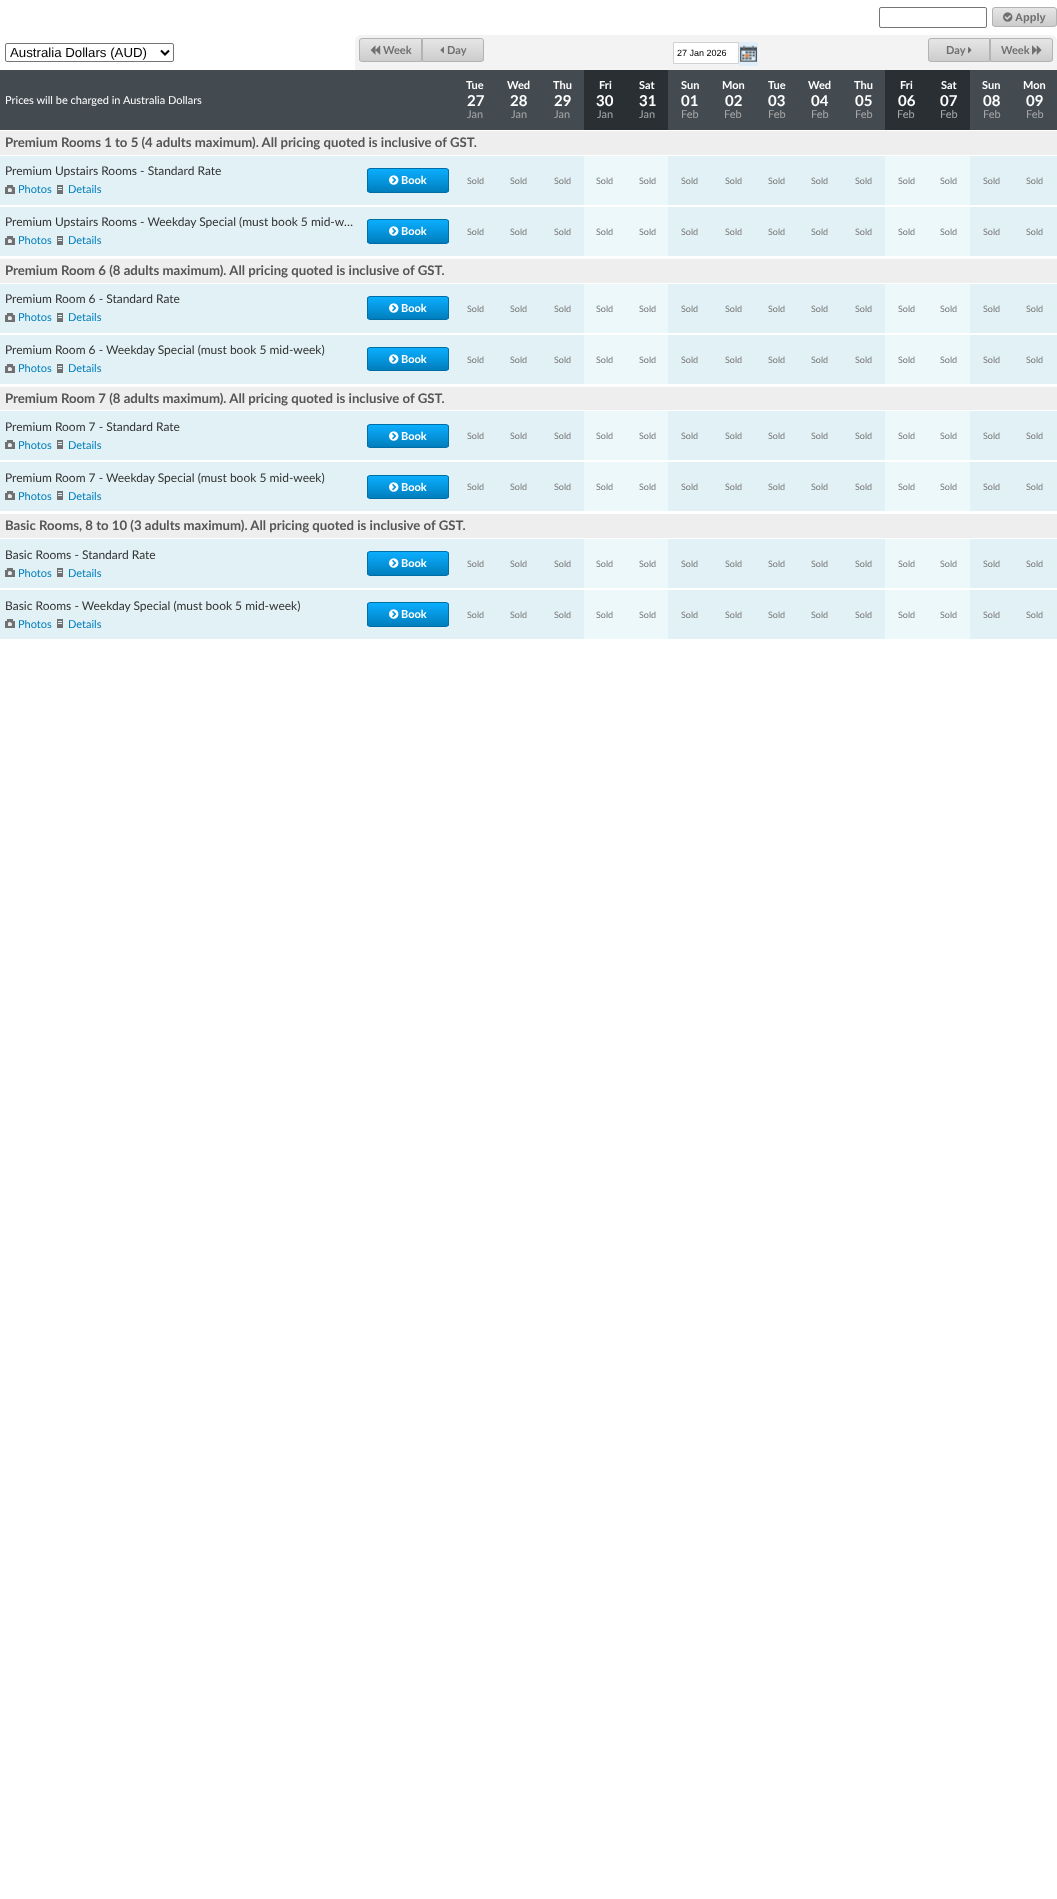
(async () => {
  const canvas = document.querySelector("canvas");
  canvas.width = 1057;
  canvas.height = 1899;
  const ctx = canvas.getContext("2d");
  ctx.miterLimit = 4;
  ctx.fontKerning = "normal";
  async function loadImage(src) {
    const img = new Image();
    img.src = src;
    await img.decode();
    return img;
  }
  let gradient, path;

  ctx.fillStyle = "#ffffff";
  ctx.fillRect(0, 0, 1057, 1899);
  ctx.beginPath();
  ctx.roundRect(879.5, 7.5, 107, 20, 1.5);
  ctx.strokeStyle = "#767676";
  ctx.stroke();
  ctx.save();
  ctx.beginPath();
  ctx.roundRect(992, 7, 65, 20, 3);
  ctx.clip();
  gradient = ctx.createLinearGradient(1025, 8, 1025, 26);
  gradient.addColorStop(0, "#e6e6e6");
  gradient.addColorStop(1, "#cccccc");
  ctx.fillStyle = gradient;
  ctx.fillRect(992, 8, 65, 18);
  ctx.restore();
  ctx.beginPath();
  ctx.roundRect(992.5, 7.5, 64, 19, 2.5);
  ctx.strokeStyle = "#b3b3b3";
  ctx.stroke();
  ctx.drawImage(await loadImage("img/1.png"), 1003, 12, 10, 10);
  ctx.beginPath();
  ctx.roundRect(5.5, 43.5, 168, 18, 1.5);
  ctx.strokeStyle = "#767676";
  ctx.stroke();
  path = new Path2D("M161 50.5L165 54.5L169 50.5");
  ctx.strokeStyle = "#000000";
  ctx.lineWidth = 2;
  ctx.stroke(path);
  ctx.fillStyle = "#f3f3f3";
  ctx.beginPath();
  ctx.roundRect(355, 35, 276, 35, [6, 0, 0, 0]);
  ctx.fill();
  ctx.save();
  ctx.beginPath();
  ctx.roundRect(359, 38, 63, 24, [3, 0, 0, 3]);
  ctx.clip();
  gradient = ctx.createLinearGradient(391, 39, 391, 61);
  gradient.addColorStop(0, "#e6e6e6");
  gradient.addColorStop(1, "#cccccc");
  ctx.fillStyle = gradient;
  ctx.fillRect(359, 39, 62, 22);
  ctx.restore();
  ctx.beginPath();
  ctx.roundRect(359.5, 38.5, 62, 23, [2.5, 0, 0, 2.5]);
  ctx.strokeStyle = "#b3b3b3";
  ctx.lineWidth = 1;
  ctx.stroke();
  ctx.drawImage(await loadImage("img/2.png"), 370, 45, 11, 10);
  ctx.save();
  ctx.beginPath();
  ctx.roundRect(422, 38, 62, 24, [0, 3, 3, 0]);
  ctx.clip();
  gradient = ctx.createLinearGradient(453, 39, 453, 61);
  gradient.addColorStop(0, "#e6e6e6");
  gradient.addColorStop(1, "#cccccc");
  ctx.fillStyle = gradient;
  ctx.fillRect(423, 39, 61, 22);
  ctx.restore();
  ctx.beginPath();
  ctx.roundRect(422.5, 38.5, 61, 23, [0, 2.5, 2.5, 0]);
  ctx.stroke();
  ctx.drawImage(await loadImage("img/3.png"), 440, 47, 4, 7);
  ctx.fillRect(631, 35, 170, 35);
  ctx.fillStyle = "#ffffff";
  ctx.beginPath();
  ctx.rect(673.5, 42.5, 65, 21);
  ctx.fill();
  ctx.strokeStyle = "#d1d1d1";
  ctx.stroke();
  ctx.drawImage(await loadImage("img/4.png"), 739, 42, 19, 24);
  ctx.fillStyle = "#f3f3f3";
  ctx.beginPath();
  ctx.roundRect(801, 35, 256, 35, [0, 6, 0, 0]);
  ctx.fill();
  ctx.save();
  ctx.beginPath();
  ctx.roundRect(928, 38, 62, 24, [3, 0, 0, 3]);
  ctx.clip();
  gradient = ctx.createLinearGradient(959, 39, 959, 61);
  gradient.addColorStop(0, "#e6e6e6");
  gradient.addColorStop(1, "#cccccc");
  ctx.fillStyle = gradient;
  ctx.fillRect(928, 39, 61, 22);
  ctx.restore();
  ctx.beginPath();
  ctx.roundRect(928.5, 38.5, 61, 23, [2.5, 0, 0, 2.5]);
  ctx.strokeStyle = "#b3b3b3";
  ctx.stroke();
  ctx.drawImage(await loadImage("img/5.png"), 968, 47, 4, 7);
  ctx.save();
  ctx.beginPath();
  ctx.roundRect(990, 38, 63, 24, [0, 3, 3, 0]);
  ctx.clip();
  gradient = ctx.createLinearGradient(1022, 39, 1022, 61);
  gradient.addColorStop(0, "#e6e6e6");
  gradient.addColorStop(1, "#cccccc");
  ctx.fillStyle = gradient;
  ctx.fillRect(991, 39, 62, 22);
  ctx.restore();
  ctx.beginPath();
  ctx.roundRect(990.5, 38.5, 62, 23, [0, 2.5, 2.5, 0]);
  ctx.stroke();
  ctx.drawImage(await loadImage("img/6.png"), 1032, 45, 10, 10);
  for (const [x, y, w, h, color] of [
    [0, 70, 584, 60, "#434a50"],
    [584, 70, 84, 60, "#2a2f34"],
    [668, 70, 217, 60, "#434a50"],
    [885, 70, 85, 60, "#2a2f34"],
    [970, 70, 87, 60, "#434a50"],
    [0, 131, 1057, 24, "#eeeeee"],
    [0, 156, 584, 49, "#e2f1f6"],
  ]) {
    ctx.fillStyle = color;
    ctx.fillRect(x, y, w, h);
  }
  ctx.drawImage(await loadImage("img/7.png"), 5, 185, 10, 9);
  ctx.drawImage(await loadImage("img/8.png"), 57, 185, 6, 9);
  ctx.save();
  ctx.beginPath();
  ctx.roundRect(367, 168, 82, 25, 3);
  ctx.clip();
  gradient = ctx.createLinearGradient(408, 192, 408, 169);
  gradient.addColorStop(0, "#007ebd");
  gradient.addColorStop(1, "#0baeff");
  ctx.fillStyle = gradient;
  ctx.fillRect(367, 169, 82, 23);
  ctx.restore();
  ctx.beginPath();
  ctx.roundRect(367.5, 168.5, 81, 24, 2.5);
  ctx.strokeStyle = "#006da4";
  ctx.stroke();
  ctx.drawImage(await loadImage("img/9.png"), 389, 175, 10, 10);
  for (const [x, y, w, h, color] of [
    [584, 156, 84, 49, "#ecf8fa"],
    [668, 156, 217, 49, "#e2f1f6"],
    [885, 156, 85, 49, "#ecf8fa"],
    [970, 156, 87, 49, "#e2f1f6"],
    [0, 207, 584, 49, "#e2f1f6"],
  ]) {
    ctx.fillStyle = color;
    ctx.fillRect(x, y, w, h);
  }
  ctx.drawImage(await loadImage("img/7.png"), 5, 236, 10, 9);
  ctx.drawImage(await loadImage("img/8.png"), 57, 236, 6, 9);
  ctx.save();
  ctx.beginPath();
  ctx.roundRect(367, 219, 82, 25, 3);
  ctx.clip();
  gradient = ctx.createLinearGradient(408, 243, 408, 220);
  gradient.addColorStop(0, "#007ebd");
  gradient.addColorStop(1, "#0baeff");
  ctx.fillStyle = gradient;
  ctx.fillRect(367, 220, 82, 23);
  ctx.restore();
  ctx.beginPath();
  ctx.roundRect(367.5, 219.5, 81, 24, 2.5);
  ctx.stroke();
  ctx.drawImage(await loadImage("img/9.png"), 389, 226, 10, 10);
  for (const [x, y, w, h, color] of [
    [584, 207, 84, 49, "#ecf8fa"],
    [668, 207, 217, 49, "#e2f1f6"],
    [885, 207, 85, 49, "#ecf8fa"],
    [970, 207, 87, 49, "#e2f1f6"],
    [0, 259, 1057, 24, "#eeeeee"],
    [0, 284, 584, 49, "#e2f1f6"],
  ]) {
    ctx.fillStyle = color;
    ctx.fillRect(x, y, w, h);
  }
  ctx.drawImage(await loadImage("img/7.png"), 5, 313, 10, 9);
  ctx.drawImage(await loadImage("img/8.png"), 57, 313, 6, 9);
  ctx.save();
  ctx.beginPath();
  ctx.roundRect(367, 296, 82, 24, 3);
  ctx.clip();
  gradient = ctx.createLinearGradient(408, 319, 408, 297);
  gradient.addColorStop(0, "#007ebd");
  gradient.addColorStop(1, "#0baeff");
  ctx.fillStyle = gradient;
  ctx.fillRect(367, 297, 82, 22);
  ctx.restore();
  ctx.beginPath();
  ctx.roundRect(367.5, 296.5, 81, 23, 2.5);
  ctx.stroke();
  ctx.drawImage(await loadImage("img/10.png"), 389, 303, 10, 10);
  for (const [x, y, w, h, color] of [
    [584, 284, 84, 49, "#ecf8fa"],
    [668, 284, 217, 49, "#e2f1f6"],
    [885, 284, 85, 49, "#ecf8fa"],
    [970, 284, 87, 49, "#e2f1f6"],
    [0, 335, 584, 49, "#e2f1f6"],
  ]) {
    ctx.fillStyle = color;
    ctx.fillRect(x, y, w, h);
  }
  ctx.drawImage(await loadImage("img/7.png"), 5, 364, 10, 9);
  ctx.drawImage(await loadImage("img/8.png"), 57, 364, 6, 9);
  ctx.save();
  ctx.beginPath();
  ctx.roundRect(367, 347, 82, 24, 3);
  ctx.clip();
  gradient = ctx.createLinearGradient(408, 370, 408, 348);
  gradient.addColorStop(0, "#007ebd");
  gradient.addColorStop(1, "#0baeff");
  ctx.fillStyle = gradient;
  ctx.fillRect(367, 348, 82, 22);
  ctx.restore();
  ctx.beginPath();
  ctx.roundRect(367.5, 347.5, 81, 23, 2.5);
  ctx.stroke();
  ctx.drawImage(await loadImage("img/10.png"), 389, 354, 10, 10);
  for (const [x, y, w, h, color] of [
    [584, 335, 84, 49, "#ecf8fa"],
    [668, 335, 217, 49, "#e2f1f6"],
    [885, 335, 85, 49, "#ecf8fa"],
    [970, 335, 87, 49, "#e2f1f6"],
    [0, 387, 1057, 23, "#eeeeee"],
    [0, 411, 584, 49, "#e2f1f6"],
  ]) {
    ctx.fillStyle = color;
    ctx.fillRect(x, y, w, h);
  }
  ctx.drawImage(await loadImage("img/7.png"), 5, 440, 10, 9);
  ctx.drawImage(await loadImage("img/8.png"), 57, 440, 6, 9);
  ctx.save();
  ctx.beginPath();
  ctx.roundRect(367, 424, 82, 24, 3);
  ctx.clip();
  gradient = ctx.createLinearGradient(408, 447, 408, 425);
  gradient.addColorStop(0, "#007ebd");
  gradient.addColorStop(1, "#0baeff");
  ctx.fillStyle = gradient;
  ctx.fillRect(367, 425, 82, 22);
  ctx.restore();
  ctx.beginPath();
  ctx.roundRect(367.5, 424.5, 81, 23, 2.5);
  ctx.stroke();
  ctx.drawImage(await loadImage("img/10.png"), 389, 431, 10, 10);
  for (const [x, y, w, h, color] of [
    [584, 411, 84, 49, "#ecf8fa"],
    [668, 411, 217, 49, "#e2f1f6"],
    [885, 411, 85, 49, "#ecf8fa"],
    [970, 411, 87, 49, "#e2f1f6"],
    [0, 462, 584, 49, "#e2f1f6"],
  ]) {
    ctx.fillStyle = color;
    ctx.fillRect(x, y, w, h);
  }
  ctx.drawImage(await loadImage("img/7.png"), 5, 491, 10, 9);
  ctx.drawImage(await loadImage("img/8.png"), 57, 491, 6, 9);
  ctx.save();
  ctx.beginPath();
  ctx.roundRect(367, 475, 82, 24, 3);
  ctx.clip();
  gradient = ctx.createLinearGradient(408, 498, 408, 476);
  gradient.addColorStop(0, "#007ebd");
  gradient.addColorStop(1, "#0baeff");
  ctx.fillStyle = gradient;
  ctx.fillRect(367, 476, 82, 22);
  ctx.restore();
  ctx.beginPath();
  ctx.roundRect(367.5, 475.5, 81, 23, 2.5);
  ctx.stroke();
  ctx.drawImage(await loadImage("img/10.png"), 389, 482, 10, 10);
  for (const [x, y, w, h, color] of [
    [584, 462, 84, 49, "#ecf8fa"],
    [668, 462, 217, 49, "#e2f1f6"],
    [885, 462, 85, 49, "#ecf8fa"],
    [970, 462, 87, 49, "#e2f1f6"],
    [0, 514, 1057, 24, "#eeeeee"],
    [0, 539, 584, 49, "#e2f1f6"],
  ]) {
    ctx.fillStyle = color;
    ctx.fillRect(x, y, w, h);
  }
  ctx.drawImage(await loadImage("img/7.png"), 5, 568, 10, 9);
  ctx.drawImage(await loadImage("img/8.png"), 57, 568, 6, 9);
  ctx.save();
  ctx.beginPath();
  ctx.roundRect(367, 551, 82, 25, 3);
  ctx.clip();
  gradient = ctx.createLinearGradient(408, 575, 408, 552);
  gradient.addColorStop(0, "#007ebd");
  gradient.addColorStop(1, "#0baeff");
  ctx.fillStyle = gradient;
  ctx.fillRect(367, 552, 82, 23);
  ctx.restore();
  ctx.beginPath();
  ctx.roundRect(367.5, 551.5, 81, 24, 2.5);
  ctx.stroke();
  ctx.drawImage(await loadImage("img/9.png"), 389, 558, 10, 10);
  for (const [x, y, w, h, color] of [
    [584, 539, 84, 49, "#ecf8fa"],
    [668, 539, 217, 49, "#e2f1f6"],
    [885, 539, 85, 49, "#ecf8fa"],
    [970, 539, 87, 49, "#e2f1f6"],
    [0, 590, 584, 49, "#e2f1f6"],
  ]) {
    ctx.fillStyle = color;
    ctx.fillRect(x, y, w, h);
  }
  ctx.drawImage(await loadImage("img/7.png"), 5, 619, 10, 9);
  ctx.drawImage(await loadImage("img/8.png"), 57, 619, 6, 9);
  ctx.save();
  ctx.beginPath();
  ctx.roundRect(367, 602, 82, 25, 3);
  ctx.clip();
  gradient = ctx.createLinearGradient(408, 626, 408, 603);
  gradient.addColorStop(0, "#007ebd");
  gradient.addColorStop(1, "#0baeff");
  ctx.fillStyle = gradient;
  ctx.fillRect(367, 603, 82, 23);
  ctx.restore();
  ctx.beginPath();
  ctx.roundRect(367.5, 602.5, 81, 24, 2.5);
  ctx.stroke();
  ctx.drawImage(await loadImage("img/9.png"), 389, 609, 10, 10);
  for (const [x, y, w, h, color] of [
    [584, 590, 84, 49, "#ecf8fa"],
    [668, 590, 217, 49, "#e2f1f6"],
    [885, 590, 85, 49, "#ecf8fa"],
    [970, 590, 87, 49, "#e2f1f6"],
  ]) {
    ctx.fillStyle = color;
    ctx.fillRect(x, y, w, h);
  }
  ctx.font = "bold 11px Liberation Sans";
  ctx.fillStyle = "#707070";
  ctx.fillText("Apply", 1015, 21);
  ctx.font = "13.25px Liberation Sans";
  ctx.fillStyle = "#000000";
  ctx.fillText("Australia Dollars (AUD)", 10, 57);
  ctx.font = "bold 11px Lato";
  ctx.fillStyle = "#707070";
  ctx.fillText("Week", 383, 54);
  ctx.fillText("Day", 447, 54);
  ctx.font = "9px Liberation Sans";
  ctx.fillStyle = "#000000";
  ctx.fillText("27 Jan 2026", 677, 56);
  ctx.font = "bold 11px Lato";
  ctx.fillStyle = "#707070";
  ctx.fillText("Day", 946, 54);
  ctx.fillText("Week", 1001, 54);
  ctx.font = "11px Lato";
  ctx.fillStyle = "#ffffff";
  ctx.fillText("Prices will be charged in Australia Dollars", 5, 104);
  ctx.font = "bold 11px Lato";
  ctx.fillText("Tue", 466, 89);
  ctx.font = "bold 15px Lato";
  ctx.fillText("27", 467, 106);
  ctx.font = "11px Lato";
  ctx.fillStyle = "#a8a8a8";
  ctx.fillText("Jan", 467, 118);
  ctx.font = "bold 11px Lato";
  ctx.fillStyle = "#ffffff";
  ctx.fillText("Wed", 507, 89);
  ctx.font = "bold 15px Lato";
  ctx.fillText("28", 510, 106);
  ctx.font = "11px Lato";
  ctx.fillStyle = "#a8a8a8";
  ctx.fillText("Jan", 511, 118);
  ctx.font = "bold 11px Lato";
  ctx.fillStyle = "#ffffff";
  ctx.fillText("Thu", 553, 89);
  ctx.font = "bold 15px Lato";
  ctx.fillText("29", 554, 106);
  ctx.font = "11px Lato";
  ctx.fillStyle = "#a8a8a8";
  ctx.fillText("Jan", 554, 118);
  ctx.font = "bold 11px Lato";
  ctx.fillStyle = "#ffffff";
  ctx.fillText("Fri", 599, 89);
  ctx.font = "bold 15px Lato";
  ctx.fillText("30", 596, 106);
  ctx.font = "11px Lato";
  ctx.fillStyle = "#a8a8a8";
  ctx.fillText("Jan", 597, 118);
  ctx.font = "bold 11px Lato";
  ctx.fillStyle = "#ffffff";
  ctx.fillText("Sat", 639, 89);
  ctx.font = "bold 15px Lato";
  ctx.fillText("31", 639, 106);
  ctx.font = "11px Lato";
  ctx.fillStyle = "#a8a8a8";
  ctx.fillText("Jan", 639, 118);
  ctx.font = "bold 11px Lato";
  ctx.fillStyle = "#ffffff";
  ctx.fillText("Sun", 681, 89);
  ctx.font = "bold 15px Lato";
  ctx.fillText("01", 681, 106);
  ctx.font = "11px Lato";
  ctx.fillStyle = "#a8a8a8";
  ctx.fillText("Feb", 681, 118);
  ctx.font = "bold 11px Lato";
  ctx.fillStyle = "#ffffff";
  ctx.fillText("Mon", 722, 89);
  ctx.font = "bold 15px Lato";
  ctx.fillText("02", 725, 106);
  ctx.font = "11px Lato";
  ctx.fillStyle = "#a8a8a8";
  ctx.fillText("Feb", 724, 118);
  ctx.font = "bold 11px Lato";
  ctx.fillStyle = "#ffffff";
  ctx.fillText("Tue", 768, 89);
  ctx.font = "bold 15px Lato";
  ctx.fillText("03", 768, 106);
  ctx.font = "11px Lato";
  ctx.fillStyle = "#a8a8a8";
  ctx.fillText("Feb", 768, 118);
  ctx.font = "bold 11px Lato";
  ctx.fillStyle = "#ffffff";
  ctx.fillText("Wed", 808, 89);
  ctx.font = "bold 15px Lato";
  ctx.fillText("04", 811, 106);
  ctx.font = "11px Lato";
  ctx.fillStyle = "#a8a8a8";
  ctx.fillText("Feb", 811, 118);
  ctx.font = "bold 11px Lato";
  ctx.fillStyle = "#ffffff";
  ctx.fillText("Thu", 854, 89);
  ctx.font = "bold 15px Lato";
  ctx.fillText("05", 855, 106);
  ctx.font = "11px Lato";
  ctx.fillStyle = "#a8a8a8";
  ctx.fillText("Feb", 855, 118);
  ctx.font = "bold 11px Lato";
  ctx.fillStyle = "#ffffff";
  ctx.fillText("Fri", 900, 89);
  ctx.font = "bold 15px Lato";
  ctx.fillText("06", 898, 106);
  ctx.font = "11px Lato";
  ctx.fillStyle = "#a8a8a8";
  ctx.fillText("Feb", 897, 118);
  ctx.font = "bold 11px Lato";
  ctx.fillStyle = "#ffffff";
  ctx.fillText("Sat", 941, 89);
  ctx.font = "bold 15px Lato";
  ctx.fillText("07", 940, 106);
  ctx.font = "11px Lato";
  ctx.fillStyle = "#a8a8a8";
  ctx.fillText("Feb", 940, 118);
  ctx.font = "bold 11px Lato";
  ctx.fillStyle = "#ffffff";
  ctx.fillText("Sun", 982, 89);
  ctx.font = "bold 15px Lato";
  ctx.fillText("08", 983, 106);
  ctx.font = "11px Lato";
  ctx.fillStyle = "#a8a8a8";
  ctx.fillText("Feb", 983, 118);
  ctx.font = "bold 11px Lato";
  ctx.fillStyle = "#ffffff";
  ctx.fillText("Mon", 1023, 89);
  ctx.font = "bold 15px Lato";
  ctx.fillText("09", 1026, 106);
  ctx.font = "11px Lato";
  ctx.fillStyle = "#a8a8a8";
  ctx.fillText("Feb", 1026, 118);
  ctx.font = "bold 13.2px Lato";
  ctx.fillStyle = "#555555";
  ctx.fillText("Premium Rooms 1 to 5 (4 adults maximum). All pricing quoted is inclusive of GST.", 5, 147);
  ctx.font = "12px Lato";
  ctx.fillStyle = "#333333";
  ctx.fillText("Premium Upstairs Rooms - Standard Rate", 5, 175);
  ctx.font = "11px Lato";
  ctx.fillStyle = "#007ebd";
  ctx.fillText("Photos", 18, 193);
  ctx.fillText("Details", 68, 193);
  ctx.font = "bold 11px Lato";
  ctx.fillStyle = "#ffffff";
  ctx.fillText("Book", 401, 184);
  ctx.font = "9px Lato";
  ctx.fillStyle = "#787878";
  for (const [text, x, y] of [
    ["Sold", 467, 184],
    ["Sold", 510, 184],
    ["Sold", 554, 184],
    ["Sold", 596, 184],
    ["Sold", 639, 184],
    ["Sold", 681, 184],
    ["Sold", 725, 184],
    ["Sold", 768, 184],
    ["Sold", 811, 184],
    ["Sold", 855, 184],
    ["Sold", 898, 184],
    ["Sold", 940, 184],
    ["Sold", 983, 184],
    ["Sold", 1026, 184],
  ]) {
    ctx.fillText(text, x, y);
  }
  ctx.font = "12px Lato";
  ctx.fillStyle = "#333333";
  ctx.fillText("Premium Upstairs Rooms - Weekday Special (must book 5 mid-w…", 5, 226);
  ctx.font = "11px Lato";
  ctx.fillStyle = "#007ebd";
  ctx.fillText("Photos", 18, 244);
  ctx.fillText("Details", 68, 244);
  ctx.font = "bold 11px Lato";
  ctx.fillStyle = "#ffffff";
  ctx.fillText("Book", 401, 235);
  ctx.font = "9px Lato";
  ctx.fillStyle = "#787878";
  for (const [text, x, y] of [
    ["Sold", 467, 235],
    ["Sold", 510, 235],
    ["Sold", 554, 235],
    ["Sold", 596, 235],
    ["Sold", 639, 235],
    ["Sold", 681, 235],
    ["Sold", 725, 235],
    ["Sold", 768, 235],
    ["Sold", 811, 235],
    ["Sold", 855, 235],
    ["Sold", 898, 235],
    ["Sold", 940, 235],
    ["Sold", 983, 235],
    ["Sold", 1026, 235],
  ]) {
    ctx.fillText(text, x, y);
  }
  ctx.font = "bold 13.2px Lato";
  ctx.fillStyle = "#555555";
  ctx.fillText("Premium Room 6 (8 adults maximum). All pricing quoted is inclusive of GST.", 5, 275);
  ctx.font = "12px Lato";
  ctx.fillStyle = "#333333";
  ctx.fillText("Premium Room 6 - Standard Rate", 5, 303);
  ctx.font = "11px Lato";
  ctx.fillStyle = "#007ebd";
  ctx.fillText("Photos", 18, 321);
  ctx.fillText("Details", 68, 321);
  ctx.font = "bold 11px Lato";
  ctx.fillStyle = "#ffffff";
  ctx.fillText("Book", 401, 312);
  ctx.font = "9px Lato";
  ctx.fillStyle = "#787878";
  for (const [text, x, y] of [
    ["Sold", 467, 312],
    ["Sold", 510, 312],
    ["Sold", 554, 312],
    ["Sold", 596, 312],
    ["Sold", 639, 312],
    ["Sold", 681, 312],
    ["Sold", 725, 312],
    ["Sold", 768, 312],
    ["Sold", 811, 312],
    ["Sold", 855, 312],
    ["Sold", 898, 312],
    ["Sold", 940, 312],
    ["Sold", 983, 312],
    ["Sold", 1026, 312],
  ]) {
    ctx.fillText(text, x, y);
  }
  ctx.font = "12px Lato";
  ctx.fillStyle = "#333333";
  ctx.fillText("Premium Room 6 - Weekday Special (must book 5 mid-week)", 5, 354);
  ctx.font = "11px Lato";
  ctx.fillStyle = "#007ebd";
  ctx.fillText("Photos", 18, 372);
  ctx.fillText("Details", 68, 372);
  ctx.font = "bold 11px Lato";
  ctx.fillStyle = "#ffffff";
  ctx.fillText("Book", 401, 363);
  ctx.font = "9px Lato";
  ctx.fillStyle = "#787878";
  for (const [text, x, y] of [
    ["Sold", 467, 363],
    ["Sold", 510, 363],
    ["Sold", 554, 363],
    ["Sold", 596, 363],
    ["Sold", 639, 363],
    ["Sold", 681, 363],
    ["Sold", 725, 363],
    ["Sold", 768, 363],
    ["Sold", 811, 363],
    ["Sold", 855, 363],
    ["Sold", 898, 363],
    ["Sold", 940, 363],
    ["Sold", 983, 363],
    ["Sold", 1026, 363],
  ]) {
    ctx.fillText(text, x, y);
  }
  ctx.font = "bold 13.2px Lato";
  ctx.fillStyle = "#555555";
  ctx.fillText("Premium Room 7 (8 adults maximum). All pricing quoted is inclusive of GST.", 5, 403);
  ctx.font = "12px Lato";
  ctx.fillStyle = "#333333";
  ctx.fillText("Premium Room 7 - Standard Rate", 5, 431);
  ctx.font = "11px Lato";
  ctx.fillStyle = "#007ebd";
  ctx.fillText("Photos", 18, 449);
  ctx.fillText("Details", 68, 449);
  ctx.font = "bold 11px Lato";
  ctx.fillStyle = "#ffffff";
  ctx.fillText("Book", 401, 440);
  ctx.font = "9px Lato";
  ctx.fillStyle = "#787878";
  for (const [text, x, y] of [
    ["Sold", 467, 439],
    ["Sold", 510, 439],
    ["Sold", 554, 439],
    ["Sold", 596, 439],
    ["Sold", 639, 439],
    ["Sold", 681, 439],
    ["Sold", 725, 439],
    ["Sold", 768, 439],
    ["Sold", 811, 439],
    ["Sold", 855, 439],
    ["Sold", 898, 439],
    ["Sold", 940, 439],
    ["Sold", 983, 439],
    ["Sold", 1026, 439],
  ]) {
    ctx.fillText(text, x, y);
  }
  ctx.font = "12px Lato";
  ctx.fillStyle = "#333333";
  ctx.fillText("Premium Room 7 - Weekday Special (must book 5 mid-week)", 5, 482);
  ctx.font = "11px Lato";
  ctx.fillStyle = "#007ebd";
  ctx.fillText("Photos", 18, 500);
  ctx.fillText("Details", 68, 500);
  ctx.font = "bold 11px Lato";
  ctx.fillStyle = "#ffffff";
  ctx.fillText("Book", 401, 491);
  ctx.font = "9px Lato";
  ctx.fillStyle = "#787878";
  for (const [text, x, y] of [
    ["Sold", 467, 490],
    ["Sold", 510, 490],
    ["Sold", 554, 490],
    ["Sold", 596, 490],
    ["Sold", 639, 490],
    ["Sold", 681, 490],
    ["Sold", 725, 490],
    ["Sold", 768, 490],
    ["Sold", 811, 490],
    ["Sold", 855, 490],
    ["Sold", 898, 490],
    ["Sold", 940, 490],
    ["Sold", 983, 490],
    ["Sold", 1026, 490],
  ]) {
    ctx.fillText(text, x, y);
  }
  ctx.font = "bold 13.2px Lato";
  ctx.fillStyle = "#555555";
  ctx.fillText("Basic Rooms, 8 to 10 (3 adults maximum). All pricing quoted is inclusive of GST.", 5, 530);
  ctx.font = "12px Lato";
  ctx.fillStyle = "#333333";
  ctx.fillText("Basic Rooms - Standard Rate", 5, 559);
  ctx.font = "11px Lato";
  ctx.fillStyle = "#007ebd";
  ctx.fillText("Photos", 18, 577);
  ctx.fillText("Details", 68, 577);
  ctx.font = "bold 11px Lato";
  ctx.fillStyle = "#ffffff";
  ctx.fillText("Book", 401, 567);
  ctx.font = "9px Lato";
  ctx.fillStyle = "#787878";
  for (const [text, x, y] of [
    ["Sold", 467, 567],
    ["Sold", 510, 567],
    ["Sold", 554, 567],
    ["Sold", 596, 567],
    ["Sold", 639, 567],
    ["Sold", 681, 567],
    ["Sold", 725, 567],
    ["Sold", 768, 567],
    ["Sold", 811, 567],
    ["Sold", 855, 567],
    ["Sold", 898, 567],
    ["Sold", 940, 567],
    ["Sold", 983, 567],
    ["Sold", 1026, 567],
  ]) {
    ctx.fillText(text, x, y);
  }
  ctx.font = "12px Lato";
  ctx.fillStyle = "#333333";
  ctx.fillText("Basic Rooms - Weekday Special (must book 5 mid-week)", 5, 610);
  ctx.font = "11px Lato";
  ctx.fillStyle = "#007ebd";
  ctx.fillText("Photos", 18, 628);
  ctx.fillText("Details", 68, 628);
  ctx.font = "bold 11px Lato";
  ctx.fillStyle = "#ffffff";
  ctx.fillText("Book", 401, 618);
  ctx.font = "9px Lato";
  ctx.fillStyle = "#787878";
  for (const [text, x, y] of [
    ["Sold", 467, 618],
    ["Sold", 510, 618],
    ["Sold", 554, 618],
    ["Sold", 596, 618],
    ["Sold", 639, 618],
    ["Sold", 681, 618],
    ["Sold", 725, 618],
    ["Sold", 768, 618],
    ["Sold", 811, 618],
    ["Sold", 855, 618],
    ["Sold", 898, 618],
    ["Sold", 940, 618],
    ["Sold", 983, 618],
    ["Sold", 1026, 618],
  ]) {
    ctx.fillText(text, x, y);
  }
})();
